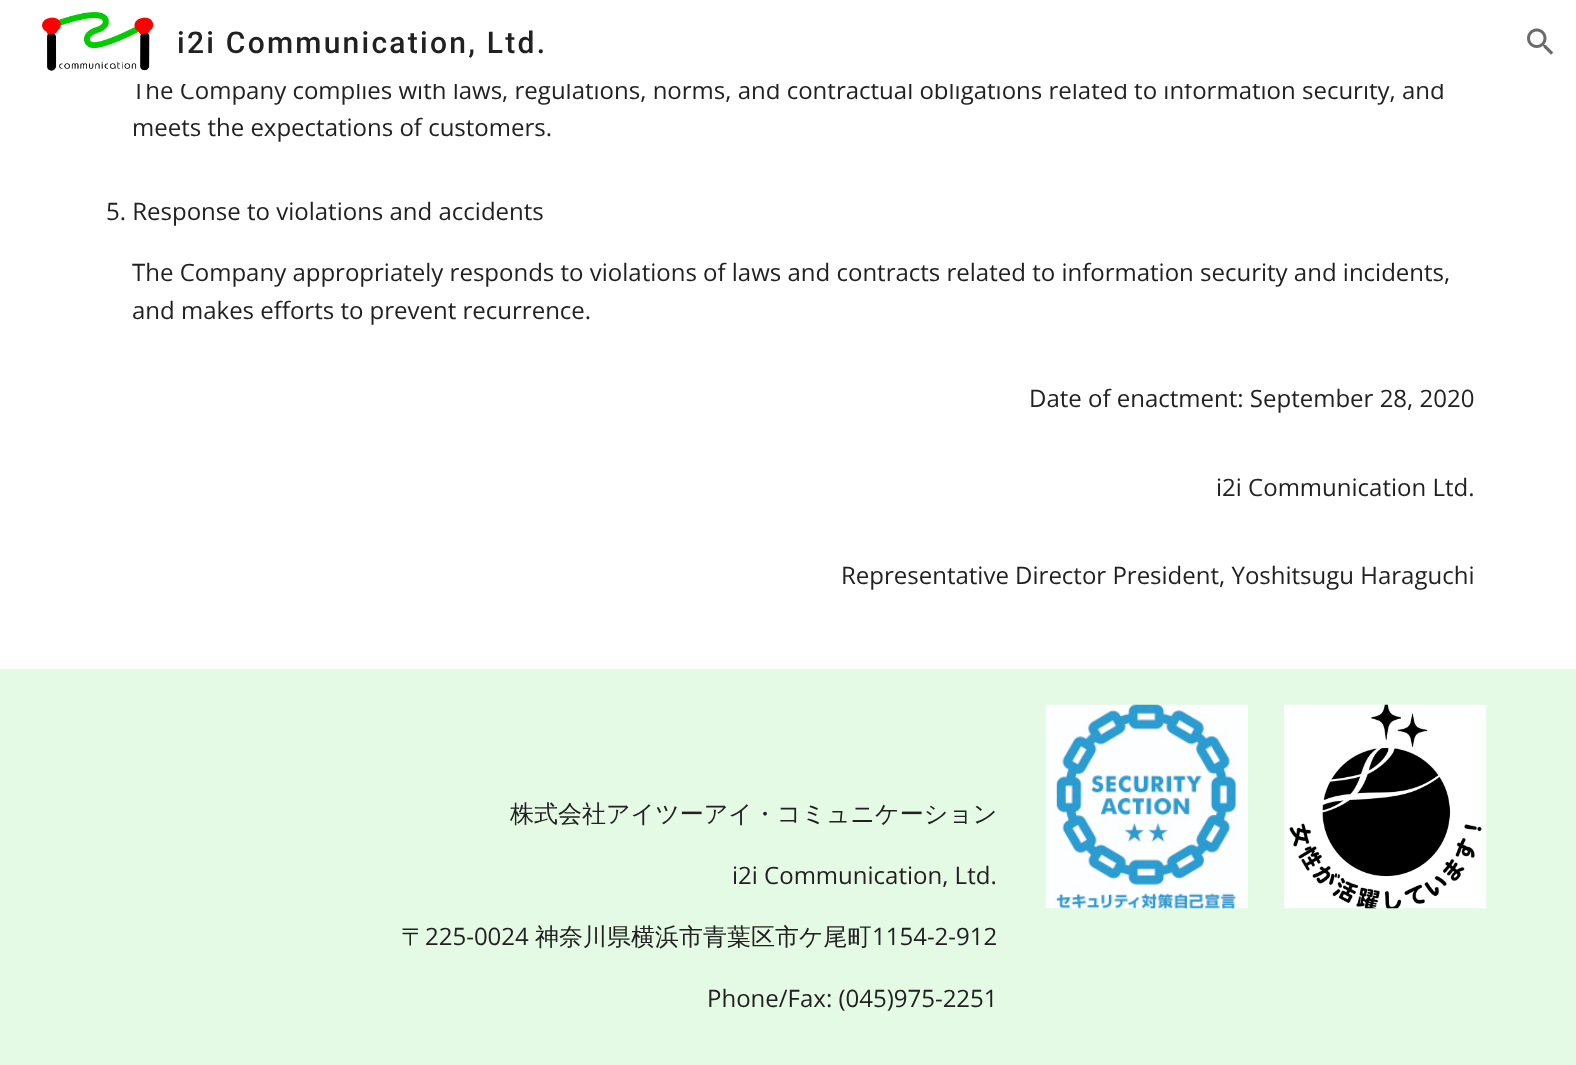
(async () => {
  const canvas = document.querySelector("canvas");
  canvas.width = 1576;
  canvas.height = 1065;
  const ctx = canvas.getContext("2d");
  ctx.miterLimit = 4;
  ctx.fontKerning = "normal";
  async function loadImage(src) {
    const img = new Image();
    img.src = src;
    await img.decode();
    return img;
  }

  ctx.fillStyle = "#ffffff";
  ctx.fillRect(0, 0, 1576, 1065);
  ctx.drawImage(await loadImage("img/1.png"), 42, 12, 111, 59);
  ctx.drawImage(await loadImage("img/2.png"), 1527, 28, 27, 27);
  ctx.fillStyle = "#e5fae5";
  ctx.fillRect(0, 669, 1576, 396);
  ctx.drawImage(await loadImage("img/3.png"), 1045, 704, 203, 205);
  ctx.drawImage(await loadImage("img/4.png"), 1284, 704, 203, 205);
  ctx.letterSpacing = "2.25px";
  ctx.font = "500 30px Roboto";
  ctx.fillStyle = "#212121";
  ctx.fillText("i2i Communication, Ltd.", 177, 53);
  ctx.letterSpacing = "0px";
  ctx.font = "24px Open Sans";
  ctx.fillText("The Company complies with laws, regulations, norms, and contractual obligations related to information security, and", 132, 99);
  ctx.fillStyle = "#ffffff";
  ctx.fillRect(132, 80, 1311, 4);
  ctx.fillStyle = "#212121";
  for (const [text, x, y] of [
    ["meets the expectations of customers.", 132, 136],
    ["5. Response to violations and accidents", 106, 220],
    ["The Company appropriately responds to violations of laws and contracts related to information security and incidents,", 132, 281],
    ["and makes efforts to prevent recurrence.", 132, 319],
    ["Date of enactment: September 28, 2020", 1029, 407],
    ["i2i Communication Ltd.", 1216, 496],
    ["Representative Director President, Yoshitsugu Haraguchi", 841, 584],
  ]) {
    ctx.fillText(text, x, y);
  }
  ctx.font = "500 24px WenQuanYi Zen Hei";
  ctx.fillText("株式会社アイツーアイ・コミュニケーション", 510, 822);
  ctx.font = "24px Open Sans";
  ctx.fillText("i2i Communication, Ltd.", 732, 884);
  ctx.font = "500 24px WenQuanYi Zen Hei";
  ctx.fillText("〒", 401, 945);
  ctx.font = "24px Open Sans";
  ctx.fillText("225-0024", 425, 945);
  ctx.font = "500 24px WenQuanYi Zen Hei";
  ctx.fillText("神奈川県横浜市青葉区市ケ尾町", 535, 945);
  ctx.font = "24px Open Sans";
  ctx.fillText("1154-2-912", 872, 945);
  ctx.fillText("Phone/Fax: (045)975-2251", 707, 1007);
})();
